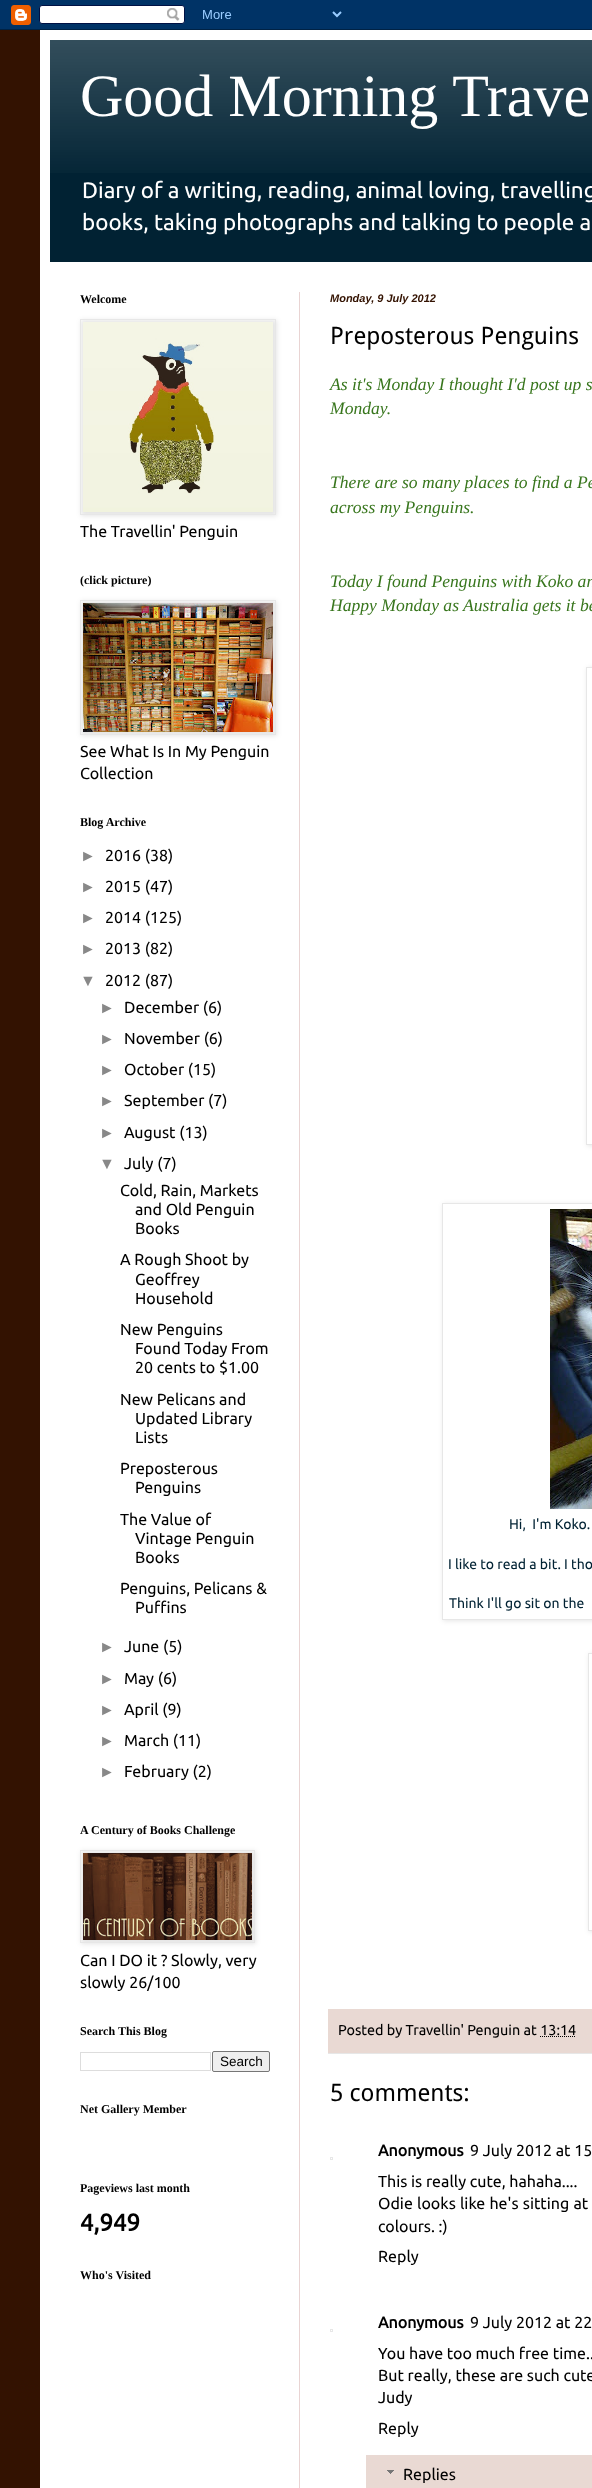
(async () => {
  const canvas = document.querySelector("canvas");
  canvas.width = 592;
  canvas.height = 2488;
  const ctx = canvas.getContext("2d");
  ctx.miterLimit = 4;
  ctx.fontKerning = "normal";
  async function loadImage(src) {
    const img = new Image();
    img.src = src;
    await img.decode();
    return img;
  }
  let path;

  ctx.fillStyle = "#331201";
  ctx.fillRect(0, 0, 592, 2488);
  ctx.drawImage(await loadImage("img/1.png"), 0, 0, 592, 30);
  ctx.fillStyle = "#ffffff";
  ctx.fillRect(40, 30, 552, 2458);
  ctx.fillStyle = "#012233";
  ctx.fillRect(50, 40, 542, 222);
  ctx.drawImage(await loadImage("img/2.png"), 50, 40, 542, 133);
  ctx.fillStyle = "#e9d4d3";
  ctx.fillRect(299, 292, 1, 2196);
  ctx.fillStyle = "rgba(0, 0, 0, 0.1)";
  ctx.filter = "blur(2.5px)";
  ctx.beginPath();
  ctx.rect(81, 320, 196, 196);
  ctx.fill();
  ctx.filter = "none";
  ctx.strokeStyle = "#e7e7e7";
  ctx.strokeRect(80.5, 319.5, 195, 195);
  ctx.drawImage(await loadImage("img/3.png"), 83, 322, 190, 190);
  ctx.filter = "blur(2.5px)";
  ctx.beginPath();
  ctx.rect(81, 601, 196, 135);
  ctx.fill();
  ctx.filter = "none";
  ctx.strokeRect(80.5, 600.5, 195, 134);
  ctx.drawImage(await loadImage("img/4.png"), 83, 603, 190, 129);
  ctx.filter = "blur(2.5px)";
  ctx.beginPath();
  ctx.rect(81, 1851, 175, 93);
  ctx.fill();
  ctx.filter = "none";
  ctx.strokeRect(80.5, 1850.5, 174, 92);
  ctx.drawImage(await loadImage("img/5.png"), 83, 1853, 169, 87);
  ctx.strokeStyle = "#dddddd";
  ctx.strokeRect(80.5, 2052.5, 130, 18);
  ctx.fillStyle = "#efefef";
  ctx.beginPath();
  ctx.roundRect(212.5, 2051.5, 57, 20, 1.5);
  ctx.fill();
  ctx.strokeStyle = "#767676";
  ctx.stroke();
  ctx.save();
  path = new Path2D("M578 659H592V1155H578ZM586 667H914V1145H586Z");
  ctx.clip(path, "evenodd");
  ctx.fillStyle = "rgba(0, 0, 0, 0.1)";
  ctx.filter = "blur(2.5px)";
  ctx.beginPath();
  ctx.rect(587, 668, 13, 478);
  ctx.fill();
  ctx.filter = "none";
  ctx.restore();
  ctx.strokeStyle = "#e7e7e7";
  ctx.strokeRect(586.5, 667.5, 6, 477);
  ctx.save();
  path = new Path2D("M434 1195H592V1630H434ZM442 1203H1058V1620H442Z");
  ctx.clip(path, "evenodd");
  ctx.fillStyle = "rgba(0, 0, 0, 0.1)";
  ctx.filter = "blur(2.5px)";
  ctx.beginPath();
  ctx.rect(443, 1204, 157, 417);
  ctx.fill();
  ctx.filter = "none";
  ctx.restore();
  ctx.strokeRect(442.5, 1203.5, 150, 416);
  ctx.drawImage(await loadImage("img/6.png"), 550, 1209, 42, 300);
  ctx.save();
  path = new Path2D("M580 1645H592V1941H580ZM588 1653H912V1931H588Z");
  ctx.clip(path, "evenodd");
  ctx.fillStyle = "rgba(0, 0, 0, 0.1)";
  ctx.filter = "blur(2.5px)";
  ctx.beginPath();
  ctx.rect(589, 1654, 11, 278);
  ctx.fill();
  ctx.filter = "none";
  ctx.restore();
  ctx.strokeRect(588.5, 1653.5, 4, 277);
  ctx.fillStyle = "#e9d9d3";
  ctx.fillRect(328, 2009, 264, 44);
  ctx.fillStyle = "#e7e7e7";
  ctx.fillRect(328, 2053, 264, 1);
  path = new Path2D("M540 2036.5H576");
  ctx.strokeStyle = "#000000";
  ctx.setLineDash([1, 1]);
  ctx.stroke(path);
  ctx.strokeStyle = "#e7e7e7";
  ctx.setLineDash([]);
  ctx.strokeRect(330.5, 2157.5, 2, 2);
  ctx.strokeRect(330.5, 2329.5, 2, 2);
  ctx.fillStyle = "#e9d9d3";
  ctx.fillRect(366, 2455, 226, 33);
  ctx.drawImage(await loadImage("img/7.png"), 387, 2470, 7, 4);
  ctx.font = "60px Liberation Serif";
  ctx.fillStyle = "#ffffff";
  ctx.fillText("Good Morning Trave", 80, 116);
  ctx.font = "22.4px Ubuntu";
  ctx.fillText("Diary of a writing, reading, animal loving, travelling", 82, 198);
  ctx.fillText("books, taking photographs and talking to people a", 82, 230);
  ctx.font = "bold 12px Liberation Serif";
  ctx.fillStyle = "#000000";
  ctx.fillText("Welcome", 80, 303);
  ctx.font = "16px Ubuntu";
  ctx.fillText("The Travellin' Penguin", 80, 537);
  ctx.font = "bold 12px Liberation Serif";
  ctx.fillText("(click picture)", 80, 584);
  ctx.font = "16px Ubuntu";
  ctx.fillText("See What Is In My Penguin", 80, 757);
  ctx.fillText("Collection", 80, 779);
  ctx.font = "bold 12px Liberation Serif";
  ctx.fillText("Blog Archive", 80, 826);
  ctx.font = "16px Liberation Sans";
  ctx.fillStyle = "#888888";
  ctx.fillText("►", 80, 861);
  ctx.font = "16px Ubuntu";
  ctx.fillStyle = "#000000";
  ctx.fillText("2016 (38)", 105, 861);
  ctx.font = "16px Liberation Sans";
  ctx.fillStyle = "#888888";
  ctx.fillText("►", 80, 892);
  ctx.font = "16px Ubuntu";
  ctx.fillStyle = "#000000";
  ctx.fillText("2015 (47)", 105, 892);
  ctx.font = "16px Liberation Sans";
  ctx.fillStyle = "#888888";
  ctx.fillText("►", 80, 923);
  ctx.font = "16px Ubuntu";
  ctx.fillStyle = "#000000";
  ctx.fillText("2014 (125)", 105, 923);
  ctx.font = "16px Liberation Sans";
  ctx.fillStyle = "#888888";
  ctx.fillText("►", 80, 954);
  ctx.font = "16px Ubuntu";
  ctx.fillStyle = "#000000";
  ctx.fillText("2013 (82)", 105, 954);
  ctx.font = "16px Liberation Sans";
  ctx.fillStyle = "#888888";
  ctx.fillText("▼", 80, 986);
  ctx.font = "16px Ubuntu";
  ctx.fillStyle = "#000000";
  ctx.fillText("2012 (87)", 105, 986);
  ctx.font = "16px Liberation Sans";
  ctx.fillStyle = "#888888";
  ctx.fillText("►", 99, 1013);
  ctx.font = "16px Ubuntu";
  ctx.fillStyle = "#000000";
  ctx.fillText("December (6)", 124, 1013);
  ctx.font = "16px Liberation Sans";
  ctx.fillStyle = "#888888";
  ctx.fillText("►", 99, 1044);
  ctx.font = "16px Ubuntu";
  ctx.fillStyle = "#000000";
  ctx.fillText("November (6)", 124, 1044);
  ctx.font = "16px Liberation Sans";
  ctx.fillStyle = "#888888";
  ctx.fillText("►", 99, 1075);
  ctx.font = "16px Ubuntu";
  ctx.fillStyle = "#000000";
  ctx.fillText("October (15)", 124, 1075);
  ctx.font = "16px Liberation Sans";
  ctx.fillStyle = "#888888";
  ctx.fillText("►", 99, 1106);
  ctx.font = "16px Ubuntu";
  ctx.fillStyle = "#000000";
  ctx.fillText("September (7)", 124, 1106);
  ctx.font = "16px Liberation Sans";
  ctx.fillStyle = "#888888";
  ctx.fillText("►", 99, 1138);
  ctx.font = "16px Ubuntu";
  ctx.fillStyle = "#000000";
  ctx.fillText("August (13)", 124, 1138);
  ctx.font = "16px Liberation Sans";
  ctx.fillStyle = "#888888";
  ctx.fillText("▼", 99, 1169);
  ctx.font = "16px Ubuntu";
  ctx.fillStyle = "#000000";
  for (const [text, x, y] of [
    ["July (7)", 124, 1169],
    ["Cold, Rain, Markets", 120, 1196],
    ["and Old Penguin", 135, 1215],
    ["Books", 135, 1234],
    ["A Rough Shoot by", 120, 1265],
    ["Geoffrey", 135, 1285],
    ["Household", 135, 1304],
    ["New Penguins", 120, 1335],
    ["Found Today From", 135, 1354],
    ["20 cents to $1.00", 135, 1373],
    ["New Pelicans and", 120, 1405],
    ["Updated Library", 135, 1424],
    ["Lists", 135, 1443],
    ["Preposterous", 120, 1474],
    ["Penguins", 135, 1493],
    ["The Value of", 120, 1525],
    ["Vintage Penguin", 135, 1544],
    ["Books", 135, 1563],
    ["Penguins, Pelicans &", 120, 1594],
    ["Puffins", 135, 1613],
  ]) {
    ctx.fillText(text, x, y);
  }
  ctx.font = "16px Liberation Sans";
  ctx.fillStyle = "#888888";
  ctx.fillText("►", 99, 1652);
  ctx.font = "16px Ubuntu";
  ctx.fillStyle = "#000000";
  ctx.fillText("June (5)", 124, 1652);
  ctx.font = "16px Liberation Sans";
  ctx.fillStyle = "#888888";
  ctx.fillText("►", 99, 1684);
  ctx.font = "16px Ubuntu";
  ctx.fillStyle = "#000000";
  ctx.fillText("May (6)", 124, 1684);
  ctx.font = "16px Liberation Sans";
  ctx.fillStyle = "#888888";
  ctx.fillText("►", 99, 1715);
  ctx.font = "16px Ubuntu";
  ctx.fillStyle = "#000000";
  ctx.fillText("April (9)", 124, 1715);
  ctx.font = "16px Liberation Sans";
  ctx.fillStyle = "#888888";
  ctx.fillText("►", 99, 1746);
  ctx.font = "16px Ubuntu";
  ctx.fillStyle = "#000000";
  ctx.fillText("March (11)", 124, 1746);
  ctx.font = "16px Liberation Sans";
  ctx.fillStyle = "#888888";
  ctx.fillText("►", 99, 1777);
  ctx.font = "16px Ubuntu";
  ctx.fillStyle = "#000000";
  ctx.fillText("February (2)", 124, 1777);
  ctx.font = "bold 12px Liberation Serif";
  ctx.fillText("A Century of Books Challenge", 80, 1834);
  ctx.font = "16px Ubuntu";
  ctx.fillText("Can I DO it ? Slowly, very", 80, 1966);
  ctx.fillText("slowly 26/100", 80, 1988);
  ctx.font = "bold 12px Liberation Serif";
  ctx.fillText("Search This Blog", 80, 2035);
  ctx.font = "13.5px Liberation Sans";
  ctx.fillText("Search", 220, 2066);
  ctx.font = "bold 12px Liberation Serif";
  ctx.fillText("Net Gallery Member", 80, 2113);
  ctx.fillText("Pageviews last month", 80, 2192);
  ctx.font = "bold 24px Ubuntu";
  ctx.fillText("4,949", 80, 2231);
  ctx.font = "bold 12px Liberation Serif";
  ctx.fillText("Who's Visited", 80, 2279);
  ctx.font = "italic bold 11px Liberation Sans";
  ctx.fillStyle = "#331201";
  ctx.fillText("Monday, 9 July 2012", 330, 302);
  ctx.font = "24px Droid Sans";
  ctx.fillStyle = "#000000";
  ctx.fillText("Preposterous Penguins", 330, 344);
  ctx.font = "italic 17.6px Liberation Serif";
  ctx.fillStyle = "#38761d";
  for (const [text, x, y] of [
    ["As it's Monday I thought I'd post up s", 330, 390],
    ["Monday.", 330, 414],
    ["There are so many places to find a Pe", 330, 488],
    ["across my Penguins.", 330, 513],
    ["Today I found Penguins with Koko an", 330, 587],
    ["Happy Monday as Australia gets it be", 330, 611],
  ]) {
    ctx.fillText(text, x, y);
  }
  ctx.font = "14px Ubuntu";
  ctx.fillStyle = "#012233";
  for (const [text, x, y] of [
    ["Hi,  I'm Koko.", 509, 1529],
    ["I like to read a bit. I tho", 448, 1569],
    ["Think I'll go sit on the", 449, 1608],
  ]) {
    ctx.fillText(text, x, y);
  }
  ctx.font = "14.4px Ubuntu";
  ctx.fillStyle = "#000000";
  ctx.fillText("Posted by Travellin' Penguin at 13:14", 338, 2035);
  ctx.font = "24px Droid Sans";
  ctx.fillText("5 comments:", 330, 2101);
  ctx.font = "bold 16px Ubuntu";
  ctx.fillText("Anonymous", 378, 2156);
  ctx.font = "16px Ubuntu";
  ctx.fillText("9 July 2012 at 15", 470, 2156);
  ctx.fillText("This is really cute, hahaha....", 378, 2187);
  ctx.wordSpacing = "0.5px";
  ctx.fillText("Odie looks like he's sitting at", 378, 2209);
  ctx.wordSpacing = "0px";
  ctx.fillText("colours. :)", 378, 2232);
  ctx.fillText("Reply", 378, 2262);
  ctx.font = "bold 16px Ubuntu";
  ctx.fillText("Anonymous", 378, 2328);
  ctx.font = "16px Ubuntu";
  for (const [text, x, y] of [
    ["9 July 2012 at 22", 470, 2328],
    ["You have too much free time..", 378, 2359],
    ["But really, these are such cute", 378, 2381],
    ["Judy", 378, 2403],
    ["Reply", 378, 2434],
    ["Replies", 403, 2480],
  ]) {
    ctx.fillText(text, x, y);
  }
})();
